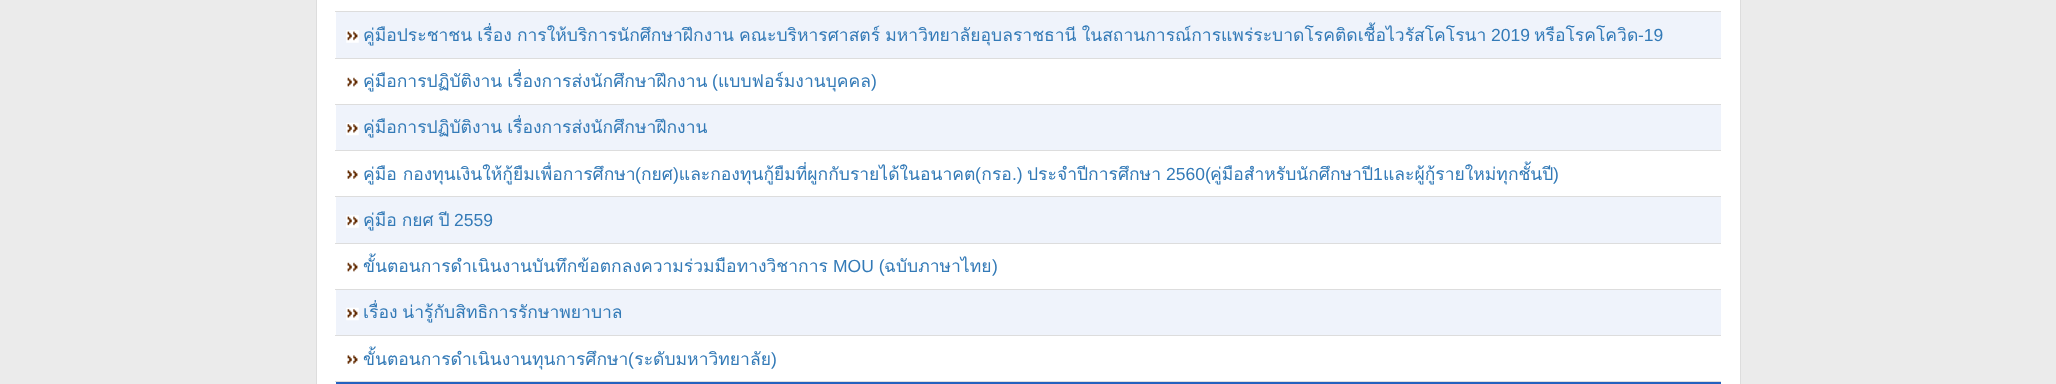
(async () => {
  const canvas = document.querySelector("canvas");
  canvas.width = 2056;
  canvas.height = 384;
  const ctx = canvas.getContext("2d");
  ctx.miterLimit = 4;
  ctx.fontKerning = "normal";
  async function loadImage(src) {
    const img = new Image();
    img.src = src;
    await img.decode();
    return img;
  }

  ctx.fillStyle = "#ebebeb";
  ctx.fillRect(0, 0, 2056, 384);
  ctx.fillStyle = "#ffffff";
  ctx.beginPath();
  ctx.rect(316.5, -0.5, 1424, 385);
  ctx.fill();
  ctx.strokeStyle = "#dddddd";
  ctx.stroke();
  ctx.fillStyle = "#eff3fb";
  ctx.fillRect(336, 12, 1385, 46);
  ctx.fillStyle = "#dddddd";
  ctx.fillRect(335, 11, 1386, 1);
  ctx.drawImage(await loadImage("img/1.png"), 346, 30, 13, 13);
  ctx.fillRect(335, 58, 1386, 1);
  ctx.drawImage(await loadImage("img/2.png"), 347, 77, 11, 10);
  ctx.fillStyle = "#eff3fb";
  ctx.fillRect(336, 105, 1385, 45);
  ctx.fillStyle = "#dddddd";
  ctx.fillRect(335, 104, 1386, 1);
  ctx.drawImage(await loadImage("img/3.png"), 346, 122, 13, 14);
  ctx.fillRect(335, 150, 1386, 1);
  ctx.drawImage(await loadImage("img/4.png"), 347, 170, 11, 9);
  ctx.fillStyle = "#eff3fb";
  ctx.fillRect(336, 197, 1385, 46);
  ctx.fillStyle = "#dddddd";
  ctx.fillRect(335, 196, 1386, 1);
  ctx.drawImage(await loadImage("img/1.png"), 346, 215, 13, 13);
  ctx.fillRect(335, 243, 1386, 1);
  ctx.drawImage(await loadImage("img/2.png"), 347, 262, 11, 10);
  ctx.fillStyle = "#eff3fb";
  ctx.fillRect(336, 290, 1385, 45);
  ctx.fillStyle = "#dddddd";
  ctx.fillRect(335, 289, 1386, 1);
  ctx.drawImage(await loadImage("img/3.png"), 346, 307, 13, 14);
  ctx.fillRect(335, 335, 1386, 1);
  ctx.drawImage(await loadImage("img/4.png"), 347, 355, 11, 9);
  ctx.fillStyle = "#2461bf";
  ctx.fillRect(336, 382, 1385, 2);
  ctx.fillStyle = "#dddddd";
  ctx.fillRect(335, 381, 1386, 1);
  ctx.wordSpacing = "-0.75px";
  ctx.font = "17.5px Loma";
  ctx.fillStyle = "#337ab7";
  ctx.fillText("คู่มือประชาชน เรื่อง การให้บริการนักศึกษาฝึกงาน คณะบริหารศาสตร์ มหาวิทยาลัยอุบลราชธานี ในสถานการณ์การแพร่ระบาดโรคติดเชื้อไวรัสโคโรนา", 363, 41);
  ctx.wordSpacing = "0px";
  ctx.font = "17.5px Liberation Sans";
  ctx.fillText("2019", 1491, 41);
  ctx.font = "17.5px Loma";
  ctx.fillText("หรือโรคโควิด", 1534, 41);
  ctx.font = "17.5px Liberation Sans";
  ctx.fillText("-19", 1638, 41);
  ctx.wordSpacing = "-1px";
  ctx.font = "17.5px Loma";
  ctx.fillText("คู่มือการปฏิบัติงาน เรื่องการส่งนักศึกษาฝึกงาน", 363, 87);
  ctx.wordSpacing = "0px";
  ctx.font = "17.5px Liberation Sans";
  ctx.fillText("(", 712, 87);
  ctx.font = "17.5px Loma";
  ctx.fillText("แบบฟอร์มงานบุคคล", 718, 87);
  ctx.font = "17.5px Liberation Sans";
  ctx.fillText(")", 871, 87);
  ctx.wordSpacing = "-1px";
  ctx.font = "17.5px Loma";
  ctx.fillText("คู่มือการปฏิบัติงาน เรื่องการส่งนักศึกษาฝึกงาน", 363, 133);
  ctx.wordSpacing = "0px";
  ctx.fillText("คู่มือ กองทุนเงินให้กู้ยืมเพื่อการศึกษา", 363, 180);
  ctx.font = "17.5px Liberation Sans";
  ctx.fillText("(", 635, 180);
  ctx.font = "17.5px Loma";
  for (const [text, x, y] of [
    ["กยศ และกองทุนกู้ยืมที่ผูกกับรายได้ในอนาคต กรอ", 641, 180],
    ["ประจำปีการศึกษา", 1027, 180],
    ["และผู้กู้รายใหม่ทุกชั้นปี", 1383, 180],
  ]) {
    ctx.fillText(text, x, y);
  }
  ctx.font = "17.5px Liberation Sans";
  for (const [text, x, y] of [
    [")", 673, 180],
    ["(", 975, 180],
    [".)", 1012, 180],
    ["2560(", 1166, 180],
  ]) {
    ctx.fillText(text, x, y);
  }
  ctx.font = "17.5px Loma";
  ctx.fillText("คู่มือสำหรับนักศึกษาปี", 1210, 180);
  ctx.font = "17.5px Liberation Sans";
  ctx.fillText("1", 1373, 180);
  ctx.fillText(")", 1553, 180);
  ctx.wordSpacing = "-1px";
  ctx.font = "17.5px Loma";
  ctx.fillText("คู่มือ กยศ ปี", 363, 226);
  ctx.wordSpacing = "0px";
  ctx.font = "17.5px Liberation Sans";
  ctx.fillText("2559", 454, 226);
  ctx.font = "17.5px Loma";
  ctx.fillText("ขั้นตอนการดำเนินงานบันทึกข้อตกลงความร่วมมือทางวิชาการ", 363, 272);
  ctx.font = "17.5px Liberation Sans";
  ctx.fillText("MOU (", 833, 272);
  ctx.font = "17.5px Loma";
  ctx.fillText("ฉบับภาษาไทย", 884, 272);
  ctx.font = "17.5px Liberation Sans";
  ctx.fillText(")", 992, 272);
  ctx.wordSpacing = "-1px";
  ctx.font = "17.5px Loma";
  ctx.fillText("เรื่อง น่ารู้กับสิทธิการรักษาพยาบาล", 363, 318);
  ctx.wordSpacing = "0px";
  ctx.fillText("ขั้นตอนการดำเนินงานทุนการศึกษา ระดับมหาวิทยาลัย", 363, 365);
  ctx.font = "17.5px Liberation Sans";
  ctx.fillText("(", 628, 365);
  ctx.fillText(")", 771, 365);
})();
